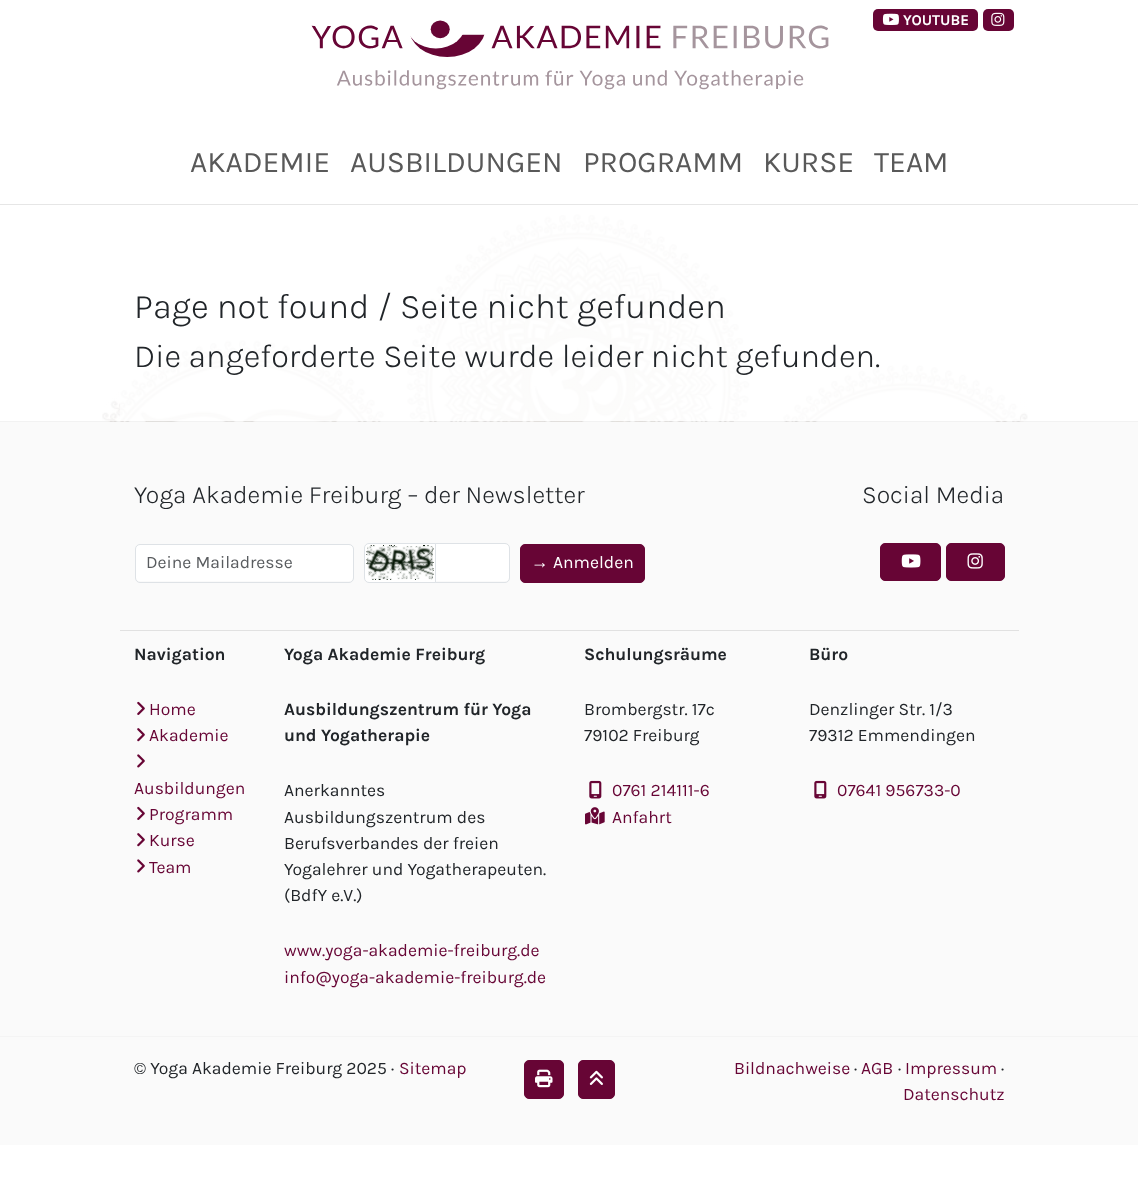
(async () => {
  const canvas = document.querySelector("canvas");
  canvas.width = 1138;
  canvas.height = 1177;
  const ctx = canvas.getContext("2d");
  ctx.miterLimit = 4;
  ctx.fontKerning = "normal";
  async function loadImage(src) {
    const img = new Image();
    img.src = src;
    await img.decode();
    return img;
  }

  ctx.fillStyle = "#ffffff";
  ctx.fillRect(0, 0, 1138, 1177);
  ctx.fillStyle = "#e6e6e6";
  ctx.fillRect(0, 204, 1138, 1);
  ctx.fillStyle = "#670535";
  ctx.beginPath();
  ctx.roundRect(873, 9, 105, 22, 5);
  ctx.fill();
  ctx.drawImage(await loadImage("img/1.png"), 882, 13, 17, 12);
  ctx.beginPath();
  ctx.roundRect(983, 9, 31, 22, 5);
  ctx.fill();
  ctx.drawImage(await loadImage("img/2.png"), 991, 12, 14, 14);
  ctx.drawImage(await loadImage("img/3.png"), 311, 20, 518, 70);
  ctx.drawImage(await loadImage("img/4.png"), 102, 214, 926, 208);
  ctx.fillStyle = "rgba(245, 245, 245, 0.5)";
  ctx.fillRect(0, 421, 1138, 724);
  ctx.fillStyle = "rgba(0, 0, 0, 0.03)";
  ctx.fillRect(0, 421, 1138, 1);
  ctx.fillStyle = "#ffffff";
  ctx.beginPath();
  ctx.roundRect(136, 545, 217, 36, 4);
  ctx.fill();
  ctx.beginPath();
  ctx.roundRect(135.5, 544.5, 218, 38, 4.5);
  ctx.strokeStyle = "#dee2e6";
  ctx.stroke();
  ctx.beginPath();
  ctx.roundRect(364.5, 543.5, 71, 39, [4.5, 0, 0, 4.5]);
  ctx.fill();
  ctx.stroke();
  ctx.drawImage(await loadImage("img/5.png"), 366, 545, 68, 35);
  ctx.beginPath();
  ctx.roundRect(436, 544, 73, 37, [0, 4, 4, 0]);
  ctx.fill();
  ctx.beginPath();
  ctx.roundRect(435.5, 543.5, 74, 39, [0, 4.5, 4.5, 0]);
  ctx.stroke();
  ctx.fillStyle = "#670535";
  ctx.beginPath();
  ctx.roundRect(520.5, 544.5, 124, 38, 4.5);
  ctx.fill();
  ctx.strokeStyle = "#670535";
  ctx.stroke();
  ctx.beginPath();
  ctx.roundRect(880.5, 543.5, 60, 37, 4.5);
  ctx.fill();
  ctx.stroke();
  ctx.drawImage(await loadImage("img/6.png"), 901, 554, 20, 14);
  ctx.beginPath();
  ctx.roundRect(946.5, 543.5, 58, 37, 4.5);
  ctx.fill();
  ctx.stroke();
  ctx.drawImage(await loadImage("img/7.png"), 967, 553, 16, 16);
  ctx.fillStyle = "#e1e1e1";
  ctx.fillRect(120, 630, 899, 1);
  ctx.drawImage(await loadImage("img/8.png"), 137, 701, 8, 14);
  ctx.drawImage(await loadImage("img/9.png"), 137, 728, 8, 14);
  ctx.drawImage(await loadImage("img/10.png"), 137, 754, 8, 14);
  ctx.drawImage(await loadImage("img/8.png"), 137, 806, 8, 14);
  ctx.drawImage(await loadImage("img/9.png"), 137, 833, 8, 14);
  ctx.drawImage(await loadImage("img/10.png"), 137, 859, 8, 14);
  ctx.drawImage(await loadImage("img/11.png"), 589, 780, 13, 19);
  ctx.drawImage(await loadImage("img/12.png"), 585, 807, 20, 18);
  ctx.drawImage(await loadImage("img/11.png"), 814, 780, 13, 19);
  ctx.fillStyle = "#f4f4f4";
  ctx.fillRect(0, 1036, 1138, 1);
  ctx.fillStyle = "#670535";
  ctx.beginPath();
  ctx.roundRect(524.5, 1060.5, 39, 38, 4.5);
  ctx.fill();
  ctx.stroke();
  ctx.drawImage(await loadImage("img/13.png"), 535, 1069, 18, 19);
  ctx.beginPath();
  ctx.roundRect(578.5, 1060.5, 36, 38, 4.5);
  ctx.fill();
  ctx.stroke();
  ctx.drawImage(await loadImage("img/14.png"), 589, 1070, 14, 15);
  ctx.font = "bold 15px Karla";
  ctx.fillStyle = "#ffffff";
  ctx.fillText("YOUTUBE", 903, 25);
  ctx.font = "30px Karla";
  ctx.fillStyle = "#595959";
  for (const [text, x, y] of [
    ["AKADEMIE", 190, 172],
    ["AUSBILDUNGEN", 350, 172],
    ["PROGRAMM", 583, 172],
    ["KURSE", 763, 172],
    ["TEAM", 874, 172],
  ]) {
    ctx.fillText(text, x, y);
  }
  ctx.font = "300 35px Karla";
  ctx.fillStyle = "#212529";
  ctx.fillText("Page not found / Seite nicht gefunden", 134, 318);
  ctx.font = "300 32.8px Karla";
  ctx.fillText("Die angeforderte Seite wurde leider nicht gefunden.", 134, 367);
  ctx.font = "300 25px Karla";
  ctx.fillText("Yoga Akademie Freiburg – der Newsletter", 134, 503);
  ctx.font = "17.5px Karla";
  ctx.fillStyle = "#595c5f";
  ctx.fillText("Deine Mailadresse", 146, 568);
  ctx.font = "17.5px Liberation Sans";
  ctx.fillStyle = "#ffffff";
  ctx.fillText("→", 531, 568);
  ctx.font = "17.5px Karla";
  ctx.fillText("Anmelden", 553, 568);
  ctx.font = "300 25px Karla";
  ctx.fillStyle = "#212529";
  ctx.fillText("Social Media", 862, 503);
  ctx.font = "bold 17.5px Karla";
  ctx.fillText("Navigation", 134, 660);
  ctx.font = "17.5px Karla";
  ctx.fillStyle = "#670535";
  for (const [text, x, y] of [
    ["Home", 149, 715],
    ["Akademie", 149, 741],
    ["Ausbildungen", 134, 794],
    ["Programm", 149, 820],
    ["Kurse", 149, 846],
    ["Team", 149, 873],
  ]) {
    ctx.fillText(text, x, y);
  }
  ctx.font = "bold 17.5px Karla";
  ctx.fillStyle = "#212529";
  for (const [text, x, y] of [
    ["Yoga Akademie Freiburg", 284, 660],
    ["Ausbildungszentrum für Yoga", 284, 715],
    ["und Yogatherapie", 284, 741],
  ]) {
    ctx.fillText(text, x, y);
  }
  ctx.font = "17.5px Karla";
  for (const [text, x, y] of [
    ["Anerkanntes", 284, 796],
    ["Ausbildungszentrum des", 284, 823],
    ["Berufsverbandes der freien", 284, 849],
    ["Yogalehrer und Yogatherapeuten.", 284, 875],
    ["(BdfY e.V.)", 284, 901],
  ]) {
    ctx.fillText(text, x, y);
  }
  ctx.fillStyle = "#670535";
  ctx.fillText("www.yoga-akademie-freiburg.de", 284, 956);
  ctx.fillText("info@yoga-akademie-freiburg.de", 284, 983);
  ctx.font = "bold 17.5px Karla";
  ctx.fillStyle = "#212529";
  ctx.fillText("Schulungsräume", 584, 660);
  ctx.font = "17.5px Karla";
  ctx.fillText("Brombergstr. 17c", 584, 715);
  ctx.fillText("79102 Freiburg", 584, 741);
  ctx.fillStyle = "#670535";
  ctx.fillText("0761 214111-6", 612, 796);
  ctx.fillText("Anfahrt", 612, 823);
  ctx.font = "bold 17.5px Karla";
  ctx.fillStyle = "#212529";
  ctx.fillText("Büro", 809, 660);
  ctx.font = "17.5px Karla";
  ctx.fillText("Denzlinger Str. 1/3", 809, 715);
  ctx.fillText("79312 Emmendingen", 809, 741);
  ctx.fillStyle = "#670535";
  ctx.fillText("07641 956733-0", 837, 796);
  ctx.fillStyle = "#212529";
  ctx.fillText("© Yoga Akademie Freiburg 2025 ·", 134, 1074);
  ctx.fillStyle = "#670535";
  ctx.fillText("Sitemap", 399, 1074);
  ctx.fillText("Bildnachweise", 734, 1074);
  ctx.fillStyle = "#212529";
  ctx.fillText("·", 854, 1074);
  ctx.fillStyle = "#670535";
  ctx.fillText("AGB", 861, 1074);
  ctx.fillStyle = "#212529";
  ctx.fillText("·", 898, 1074);
  ctx.fillStyle = "#670535";
  ctx.fillText("Impressum", 905, 1074);
  ctx.fillStyle = "#212529";
  ctx.fillText("·", 1001, 1074);
  ctx.fillStyle = "#670535";
  ctx.fillText("Datenschutz", 903, 1100);
})();
